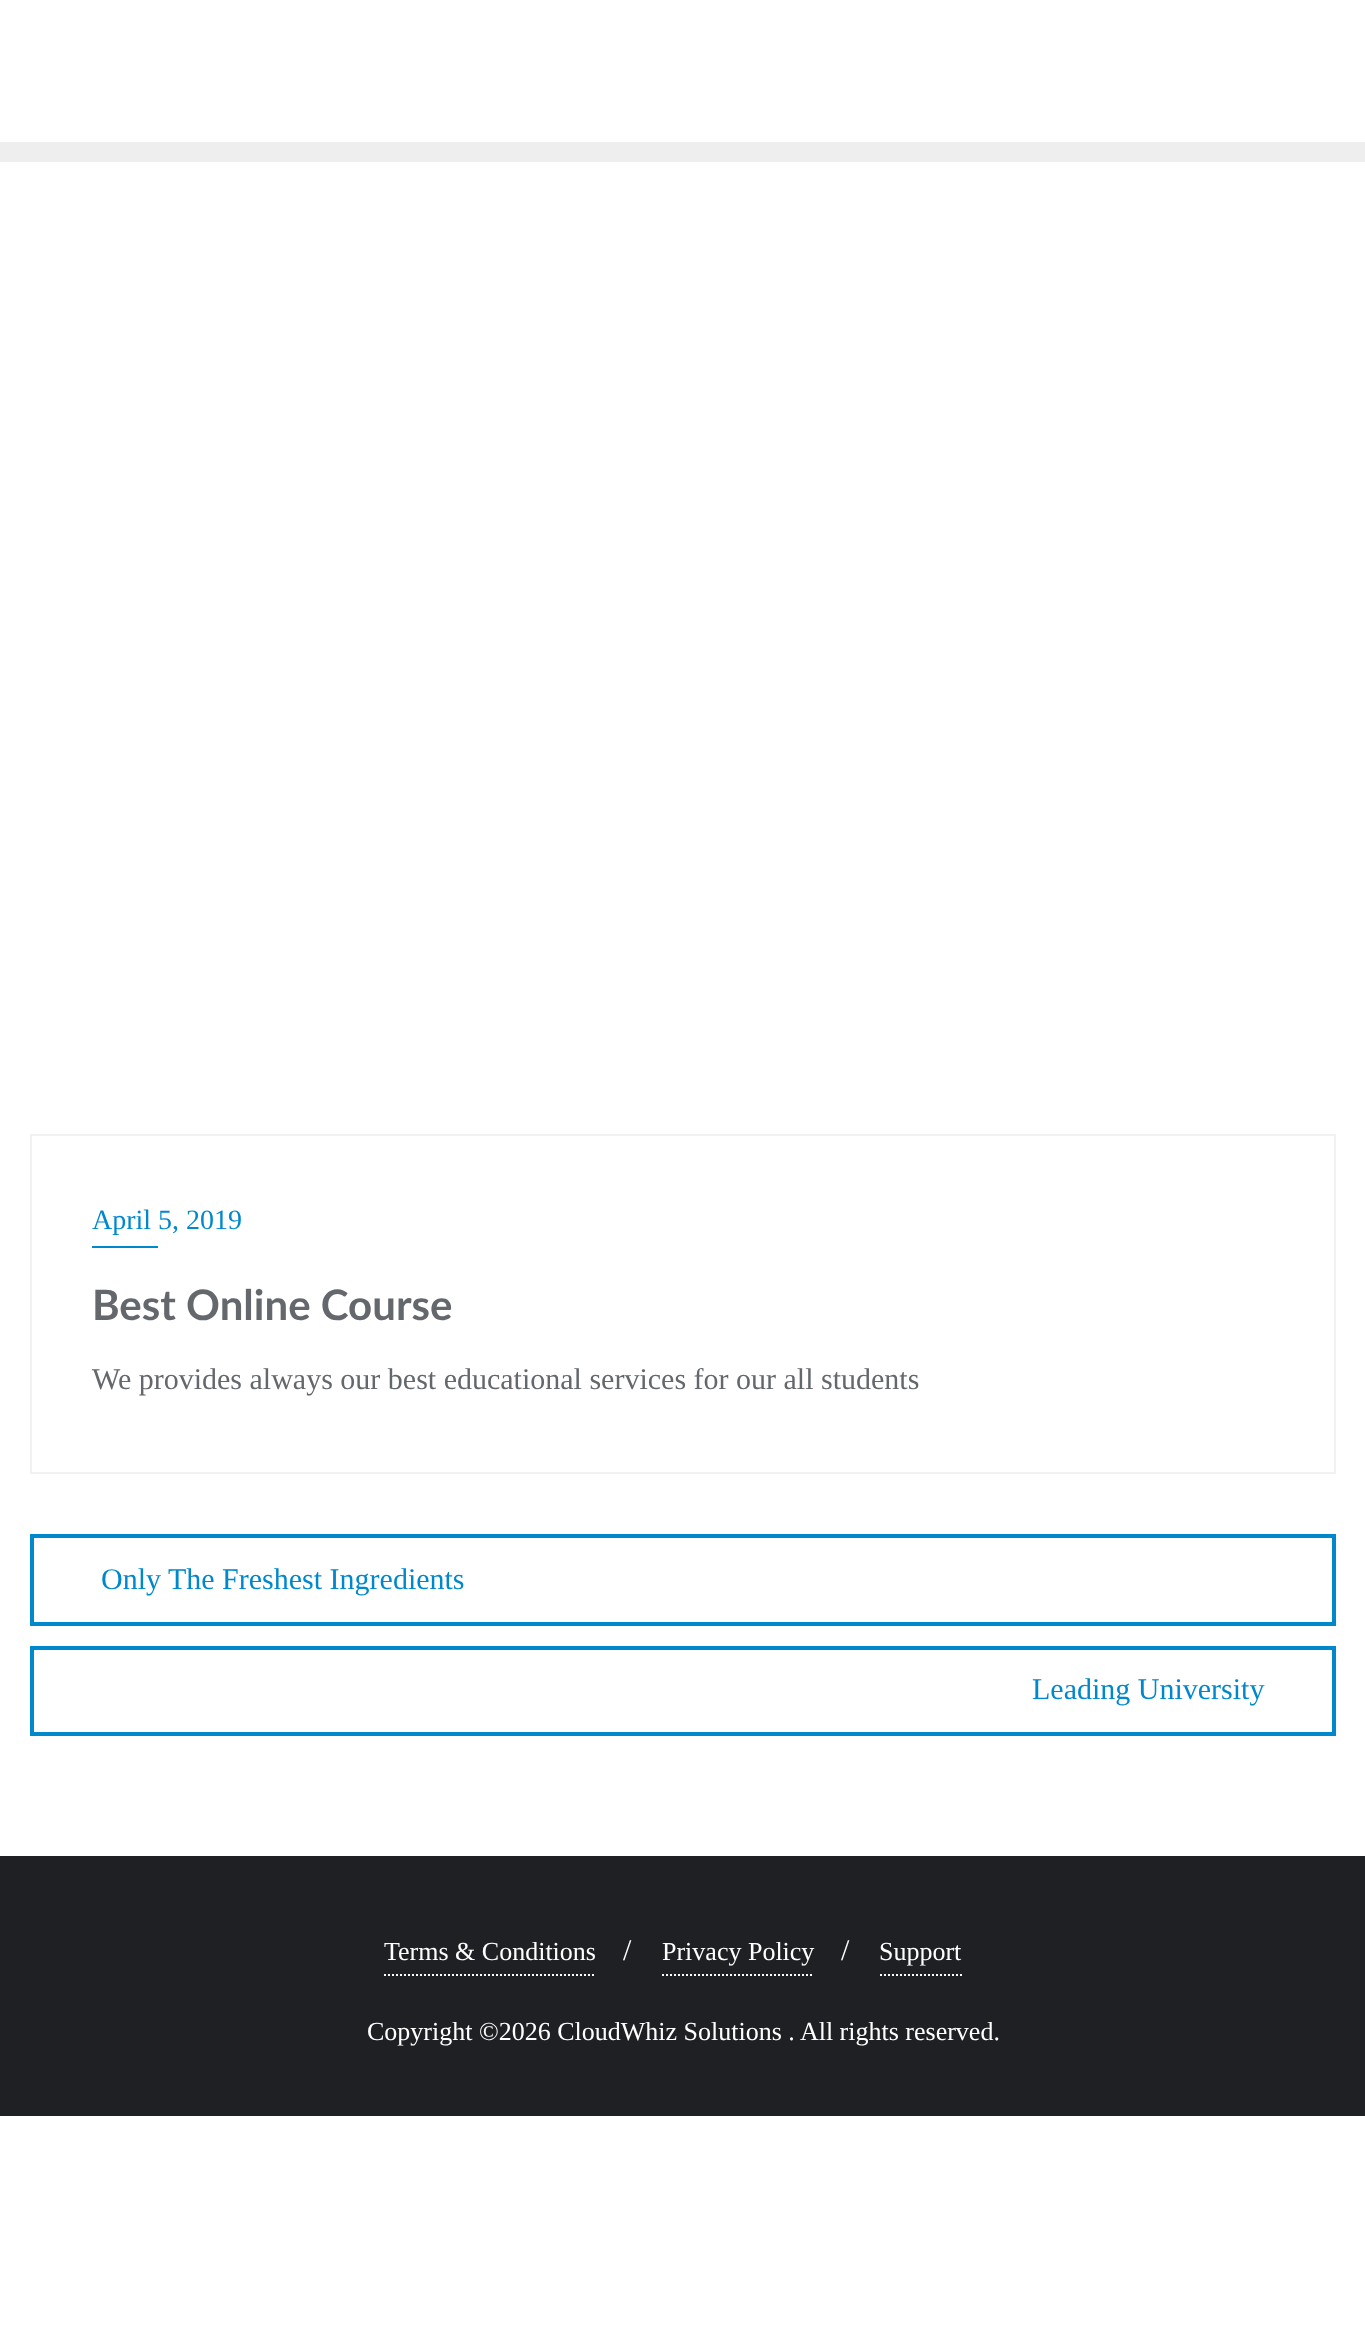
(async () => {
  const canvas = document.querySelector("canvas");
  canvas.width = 1365;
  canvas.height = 2342;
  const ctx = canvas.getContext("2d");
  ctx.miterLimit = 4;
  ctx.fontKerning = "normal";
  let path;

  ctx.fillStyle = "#ffffff";
  ctx.fillRect(0, 0, 1365, 2342);
  ctx.fillStyle = "#eeeeee";
  ctx.fillRect(0, 142, 1365, 20);
  ctx.strokeStyle = "#f1f1f1";
  ctx.lineWidth = 2;
  ctx.strokeRect(31, 1135, 1304, 338);
  ctx.fillStyle = "#0088cc";
  ctx.fillRect(92, 1246, 66, 2);
  ctx.strokeStyle = "#0088cc";
  ctx.lineWidth = 4;
  ctx.strokeRect(32, 1536, 1302, 88);
  ctx.strokeRect(32, 1648, 1302, 86);
  ctx.fillStyle = "#1f2024";
  ctx.fillRect(0, 1856, 1365, 260);
  path = new Path2D("M384 1975H596");
  ctx.strokeStyle = "#ffffff";
  ctx.lineWidth = 2;
  ctx.setLineDash([2, 2]);
  ctx.stroke(path);
  path = new Path2D("M662 1975H814");
  ctx.stroke(path);
  path = new Path2D("M880 1975H962");
  ctx.stroke(path);
  ctx.font = "28px Liberation Serif";
  ctx.fillStyle = "#0088cc";
  ctx.fillText("April 5, 2019", 92, 1229);
  ctx.font = "bold 42px Lato";
  ctx.fillStyle = "#64686d";
  ctx.fillText("Best Online Course", 92, 1320);
  ctx.font = "30px Liberation Serif";
  ctx.fillText("We provides always our best educational services for our all students", 92, 1389);
  ctx.fillStyle = "#0088cc";
  ctx.fillText("Only The Freshest Ingredients", 101, 1589);
  ctx.fillText("Leading University", 1032, 1699);
  ctx.font = "26px Liberation Serif";
  ctx.fillStyle = "#ffffff";
  ctx.fillText("Terms & Conditions", 384, 1960);
  ctx.font = "30px Liberation Serif";
  ctx.fillText("/", 623, 1960);
  ctx.font = "26px Liberation Serif";
  ctx.fillText("Privacy Policy", 662, 1960);
  ctx.font = "30px Liberation Serif";
  ctx.fillText("/", 841, 1960);
  ctx.font = "26px Liberation Serif";
  ctx.fillText("Support", 879, 1960);
  ctx.fillText("Copyright ©2026 CloudWhiz Solutions . All rights reserved.", 367, 2040);
})();
